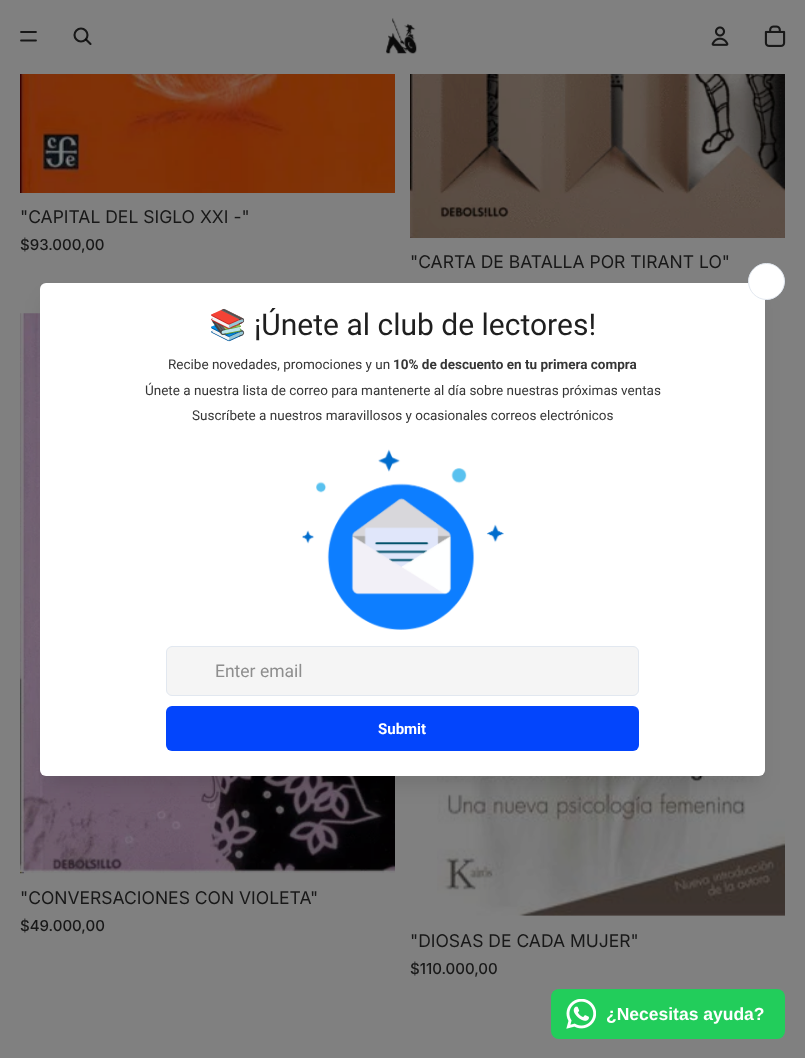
(async () => {
  const canvas = document.querySelector("canvas");
  canvas.width = 805;
  canvas.height = 1058;
  const ctx = canvas.getContext("2d");
  ctx.miterLimit = 4;
  ctx.fontKerning = "normal";
  async function loadImage(src) {
    const img = new Image();
    img.src = src;
    await img.decode();
    return img;
  }
  let path;

  ctx.fillStyle = "#808080";
  ctx.fillRect(0, 0, 805, 1058);
  path = new Path2D("M21 32H36M21 40.5H36");
  ctx.strokeStyle = "#181818";
  ctx.lineWidth = 1.8;
  ctx.lineCap = "round";
  ctx.stroke(path);
  ctx.beginPath();
  ctx.arc(81, 35, 6.5, 0, Math.PI * 2);
  ctx.lineWidth = 2.1;
  ctx.stroke();
  path = new Path2D("M86 39.5L90.5 44");
  ctx.strokeStyle = "rgba(0, 0, 0, 0.81)";
  ctx.lineJoin = "round";
  ctx.stroke(path);
  ctx.drawImage(await loadImage("img/1.png"), 386, 18, 31, 36);
  ctx.drawImage(await loadImage("img/2.png"), 711, 26, 18, 20);
  ctx.drawImage(await loadImage("img/3.png"), 764, 25, 22, 22);
  ctx.drawImage(await loadImage("img/4.png"), 20, 74, 375, 119);
  ctx.drawImage(await loadImage("img/5.png"), 410, 74, 375, 164);
  ctx.drawImage(await loadImage("img/6.png"), 20, 313, 375, 561);
  ctx.drawImage(await loadImage("img/7.png"), 437, 316, 348, 600);
  ctx.fillStyle = "rgba(0, 0, 0, 0.1)";
  ctx.filter = "blur(9.5px)";
  ctx.beginPath();
  ctx.roundRect(44, 299, 717, 486, 2.5);
  ctx.fill();
  ctx.filter = "none";
  ctx.save();
  ctx.beginPath();
  ctx.rect(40, 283, 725, 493);
  ctx.clip();
  ctx.fillStyle = "rgba(0, 0, 0, 0.12)";
  ctx.filter = "blur(12.5px)";
  ctx.beginPath();
  ctx.roundRect(44, 286, 717, 487, 2.5);
  ctx.fill();
  ctx.filter = "none";
  ctx.restore();
  ctx.fillStyle = "#ffffff";
  ctx.beginPath();
  ctx.roundRect(40, 283, 725, 493, 6);
  ctx.fill();
  ctx.beginPath();
  ctx.arc(766.5, 281.5, 18, 0, Math.PI * 2);
  ctx.fill();
  ctx.strokeStyle = "#e2e8f0";
  ctx.lineWidth = 1;
  ctx.stroke();
  ctx.drawImage(await loadImage("img/8.png"), 302, 449, 202, 181);
  ctx.fillStyle = "#f5f5f5";
  ctx.beginPath();
  ctx.roundRect(166.5, 646.5, 472, 49, 5.5);
  ctx.fill();
  ctx.lineJoin = "miter";
  ctx.stroke();
  ctx.fillStyle = "#0345fc";
  ctx.beginPath();
  ctx.roundRect(166, 706, 473, 45, 6);
  ctx.fill();
  ctx.fillStyle = "#22cd5b";
  ctx.beginPath();
  ctx.roundRect(551, 989, 234, 50, 8);
  ctx.fill();
  ctx.drawImage(await loadImage("img/9.png"), 566, 999, 30, 30);
  ctx.font = "17.5px Inter";
  ctx.fillStyle = "#181818";
  ctx.fillText("\"CAPITAL DEL SIGLO XXI -\"", 20, 223);
  ctx.font = "500 15px Inter";
  ctx.fillText("$93.000,00", 20, 250);
  ctx.font = "17.5px Inter";
  ctx.fillText("\"CARTA DE BATALLA POR TIRANT LO\"", 410, 268);
  ctx.fillText("\"CONVERSACIONES CON VIOLETA\"", 20, 904);
  ctx.font = "500 15px Inter";
  ctx.fillText("$49.000,00", 20, 931);
  ctx.font = "17.5px Inter";
  ctx.fillText("\"DIOSAS DE CADA MUJER\"", 410, 947);
  ctx.font = "500 15px Inter";
  ctx.fillText("$110.000,00", 410, 974);
  ctx.font = "30px Noto Color Emoji";
  ctx.fillStyle = "#1f1f1f";
  ctx.fillText("📚", 209, 335);
  ctx.font = "30px Roboto";
  ctx.fillText("¡Únete al club de lectores!", 254, 335);
  ctx.font = "13.5px Roboto";
  ctx.fillStyle = "#363636";
  ctx.fillText("Recibe novedades, promociones y un", 168, 369);
  ctx.font = "bold 13.5px Roboto";
  ctx.fillText("10% de descuento en tu primera compra", 393, 369);
  ctx.font = "13.5px Roboto";
  ctx.fillText("Únete a nuestra lista de correo para mantenerte al día sobre nuestras próximas ventas", 145, 395);
  ctx.fillText("Suscríbete a nuestros maravillosos y ocasionales correos electrónicos", 192, 420);
  ctx.font = "17.5px Roboto";
  ctx.fillStyle = "#8e8e8e";
  ctx.fillText("Enter email", 215, 677);
  ctx.font = "bold 15px Roboto";
  ctx.fillStyle = "#ffffff";
  ctx.fillText("Submit", 378, 734);
  ctx.font = "bold 17.5px Liberation Sans";
  ctx.fillText("¿Necesitas ayuda?", 606, 1020);
})();
